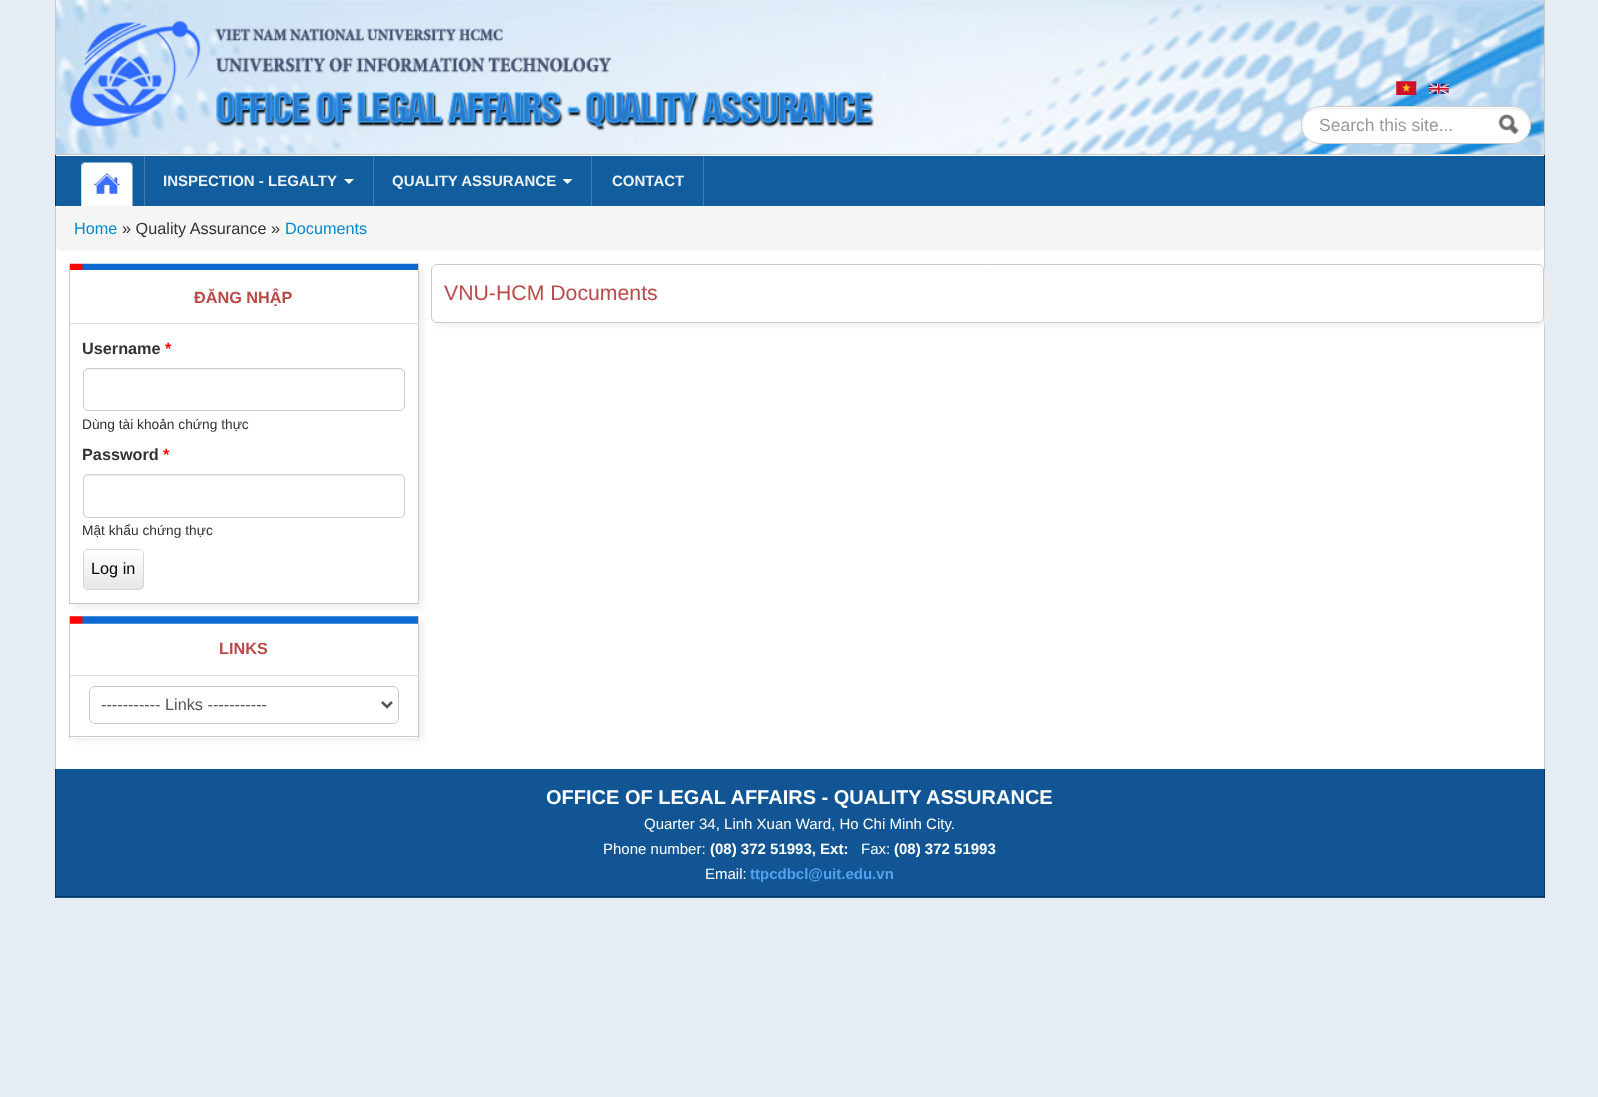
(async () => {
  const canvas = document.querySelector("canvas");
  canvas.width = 1598;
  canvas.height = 1097;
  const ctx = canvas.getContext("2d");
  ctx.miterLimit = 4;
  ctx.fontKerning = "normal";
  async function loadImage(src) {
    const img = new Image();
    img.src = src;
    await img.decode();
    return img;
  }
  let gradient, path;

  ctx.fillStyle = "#e5ecf4";
  ctx.fillRect(0, 0, 1598, 1097);
  ctx.drawImage(await loadImage("img/1.png"), 56, 0, 1488, 154);
  for (const [x, y, w, h, color] of [
    [1544, 0, 1, 155, "#cacaca"],
    [55, 154, 1490, 1, "#cacaca"],
    [55, 0, 1, 155, "#cacaca"],
  ]) {
    ctx.fillStyle = color;
    ctx.fillRect(x, y, w, h);
  }
  ctx.drawImage(await loadImage("img/2.png"), 69, 21, 805, 110);
  for (const [x, y, w, h, color] of [
    [56, 156, 1488, 50, "#115d9d"],
    [55, 155, 1490, 1, "#ffffff"],
    [1544, 155, 1, 51, "#09355a"],
    [55, 155, 1, 51, "#09355a"],
  ]) {
    ctx.fillStyle = color;
    ctx.fillRect(x, y, w, h);
  }
  ctx.drawImage(await loadImage("img/3.png"), 1396, 81, 21, 14);
  ctx.drawImage(await loadImage("img/4.png"), 1428, 83, 21, 11);
  ctx.fillStyle = "#ffffff";
  ctx.beginPath();
  ctx.roundRect(1301, 106, 230, 38, 19);
  ctx.fill();
  ctx.fillStyle = "#ececec";
  path = new Path2D("M1320 109H1512C1522 109 1530 117 1530 126C1530 116 1522 108 1512 108H1320C1315 108 1310 110 1307 114C1310 111 1315 109 1320 109Z");
  ctx.fill(path);
  ctx.beginPath();
  ctx.roundRect(1301.5, 106.5, 229, 37, 18.5);
  ctx.strokeStyle = "#cccccc";
  ctx.stroke();
  ctx.drawImage(await loadImage("img/5.png"), 1498, 113, 21, 22);
  ctx.drawImage(await loadImage("img/6.png"), 81, 162, 52, 44);
  ctx.fillStyle = "#437aa8";
  ctx.fillRect(144, 156, 1, 50);
  ctx.fillRect(373, 156, 1, 50);
  ctx.fillStyle = "#ffffff";
  path = new Path2D("M344 179H354L349 184Z");
  ctx.fill(path);
  ctx.fillStyle = "#437aa8";
  ctx.fillRect(591, 156, 1, 50);
  ctx.fillStyle = "#ffffff";
  path = new Path2D("M562.5 179H572.5L567.5 184Z");
  ctx.fill(path);
  for (const [x, y, w, h, color] of [
    [703, 156, 1, 50, "#437aa8"],
    [56, 206, 1488, 563, "#ffffff"],
    [1544, 206, 1, 563, "#cacaca"],
    [55, 206, 1, 563, "#cacaca"],
  ]) {
    ctx.fillStyle = color;
    ctx.fillRect(x, y, w, h);
  }
  ctx.fillStyle = "#f5f5f5";
  ctx.beginPath();
  ctx.roundRect(56, 206, 1488, 45, 5);
  ctx.fill();
  ctx.save();
  path = new Path2D("M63 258H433V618H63ZM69 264H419V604H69Z");
  ctx.clip(path, "evenodd");
  ctx.fillStyle = "#eeeeee";
  ctx.filter = "blur(3px)";
  ctx.beginPath();
  ctx.rect(73, 268, 350, 340);
  ctx.fill();
  ctx.filter = "none";
  ctx.restore();
  ctx.drawImage(await loadImage("img/7.png"), 70, 263, 349, 7);
  for (const [x, y, w, h, color] of [
    [418, 264, 1, 340, "#cacaca"],
    [69, 603, 350, 1, "#cacaca"],
    [69, 264, 1, 340, "#cacaca"],
    [70, 323, 348, 1, "#dddddd"],
  ]) {
    ctx.fillStyle = color;
    ctx.fillRect(x, y, w, h);
  }
  ctx.fillStyle = "#ececec";
  path = new Path2D("M88 370H400C402 370 404 372 404 374V373C404 371 402 369 400 369H88C86 369 84 371 84 373V374C84 372 85 370 88 370Z");
  ctx.fill(path);
  ctx.beginPath();
  ctx.roundRect(83.5, 368.5, 321, 42, 4.5);
  ctx.stroke();
  path = new Path2D("M88 476H400C402 476 404 478 404 480V479C404 477 402 475 400 475H88C86 475 84 477 84 479V480C84 478 85 476 88 476Z");
  ctx.fill(path);
  ctx.beginPath();
  ctx.roundRect(83.5, 474.5, 321, 43, 4.5);
  ctx.stroke();
  ctx.save();
  ctx.beginPath();
  ctx.roundRect(83, 549, 61, 41, 5);
  ctx.clip();
  gradient = ctx.createLinearGradient(113, 550, 113, 589);
  gradient.addColorStop(0, "#ffffff");
  gradient.addColorStop(1, "#e6e6e6");
  ctx.fillStyle = gradient;
  ctx.fillRect(83, 550, 61, 39);
  ctx.restore();
  ctx.beginPath();
  ctx.roundRect(83.5, 549.5, 60, 40, 4.5);
  ctx.strokeStyle = "#d5d5d5";
  ctx.stroke();
  ctx.save();
  path = new Path2D("M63 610H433V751H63ZM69 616H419V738H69Z");
  ctx.clip(path, "evenodd");
  ctx.fillStyle = "#eeeeee";
  ctx.filter = "blur(3px)";
  ctx.beginPath();
  ctx.rect(73, 620, 350, 121);
  ctx.fill();
  ctx.filter = "none";
  ctx.restore();
  ctx.drawImage(await loadImage("img/8.png"), 70, 616, 348, 8);
  for (const [x, y, w, h, color] of [
    [418, 616, 1, 122, "#cacaca"],
    [69, 736, 350, 1, "#cacaca"],
    [69, 616, 1, 122, "#cacaca"],
    [70, 675, 348, 1, "#dddddd"],
  ]) {
    ctx.fillStyle = color;
    ctx.fillRect(x, y, w, h);
  }
  ctx.beginPath();
  ctx.roundRect(89.5, 686.5, 309, 37, 5.5);
  ctx.strokeStyle = "#c9c9c9";
  ctx.stroke();
  path = new Path2D("M382 702L387 707L392 702");
  ctx.strokeStyle = "#555555";
  ctx.lineWidth = 2.5;
  ctx.stroke(path);
  ctx.save();
  path = new Path2D("M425 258H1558V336H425ZM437 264H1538C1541.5 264 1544 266.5 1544 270V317C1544 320.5 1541.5 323 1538 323H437C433.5 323 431 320.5 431 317V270C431 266.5 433.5 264 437 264Z");
  ctx.clip(path, "evenodd");
  ctx.fillStyle = "#eeeeee";
  ctx.filter = "blur(3px)";
  ctx.beginPath();
  ctx.roundRect(435, 268, 1113, 58, 6);
  ctx.fill();
  ctx.filter = "none";
  ctx.restore();
  ctx.beginPath();
  ctx.roundRect(431.5, 264.5, 1112, 58, 5.5);
  ctx.strokeStyle = "#cacaca";
  ctx.lineWidth = 1;
  ctx.stroke();
  for (const [x, y, w, h, color] of [
    [56, 769, 1488, 129, "#115595"],
    [1544, 769, 1, 129, "#09355a"],
    [55, 896, 1490, 1, "#09355a"],
    [55, 769, 1, 129, "#09355a"],
  ]) {
    ctx.fillStyle = color;
    ctx.fillRect(x, y, w, h);
  }
  ctx.font = "17.5px Liberation Sans";
  ctx.fillStyle = "#999999";
  ctx.fillText("Search this site...", 1319, 131);
  ctx.font = "bold 15px Liberation Sans";
  ctx.fillStyle = "#eaf1f7";
  for (const [text, x, y] of [
    ["INSPECTION - LEGALTY", 163, 186],
    ["QUALITY ASSURANCE", 392, 186],
    ["CONTACT", 612, 186],
  ]) {
    ctx.fillText(text, x, y);
  }
  ctx.font = "16.25px Liberation Sans";
  ctx.fillStyle = "#0088cc";
  ctx.fillText("Home", 74, 234);
  ctx.fillStyle = "#333333";
  ctx.fillText("» Quality Assurance »", 122, 234);
  ctx.fillStyle = "#0088cc";
  ctx.fillText("Documents", 285, 234);
  ctx.font = "bold 16.25px Liberation Sans";
  ctx.fillStyle = "#b94a48";
  ctx.fillText("ĐĂNG NHẬP", 194, 303);
  ctx.fillStyle = "#333333";
  ctx.fillText("Username", 82, 354);
  ctx.fillStyle = "#ff0000";
  ctx.fillText("*", 165, 354);
  ctx.font = "13.75px Liberation Sans";
  ctx.fillStyle = "#333333";
  ctx.fillText("Dùng tài khoản chứng thực", 82, 429);
  ctx.font = "bold 16.25px Liberation Sans";
  ctx.fillText("Password", 82, 460);
  ctx.fillStyle = "#ff0000";
  ctx.fillText("*", 163, 460);
  ctx.font = "13.75px Liberation Sans";
  ctx.fillStyle = "#333333";
  ctx.fillText("Mật khẩu chứng thực", 82, 535);
  ctx.font = "16.25px Liberation Sans";
  ctx.fillStyle = "#000000";
  ctx.fillText("Log in", 91, 574);
  ctx.font = "bold 16.25px Liberation Sans";
  ctx.fillStyle = "#b94a48";
  ctx.fillText("LINKS", 219, 654);
  ctx.font = "16.25px Liberation Sans";
  ctx.fillStyle = "#555555";
  ctx.fillText("----------- Links -----------", 101, 710);
  ctx.font = "21.25px Liberation Sans";
  ctx.fillStyle = "#b94a48";
  ctx.fillText("VNU-HCM Documents", 444, 300);
  ctx.font = "bold 20px Liberation Sans";
  ctx.fillStyle = "#ffffff";
  ctx.fillText("OFFICE OF LEGAL AFFAIRS - QUALITY ASSURANCE", 546, 804);
  ctx.font = "15px Liberation Sans";
  ctx.fillText("Quarter 34, Linh Xuan Ward, Ho Chi Minh City.", 644, 829);
  ctx.fillText("Phone number:", 603, 854);
  ctx.font = "bold 15px Liberation Sans";
  ctx.fillText("(08) 372 51993, Ext:", 710, 854);
  ctx.font = "15px Liberation Sans";
  ctx.fillText("Fax:", 861, 854);
  ctx.font = "bold 15px Liberation Sans";
  ctx.fillText("(08) 372 51993", 894, 854);
  ctx.font = "15px Liberation Sans";
  ctx.fillText("Email:", 705, 879);
  ctx.font = "bold 15px Liberation Sans";
  ctx.fillStyle = "#53a2ec";
  ctx.fillText("ttpcdbcl@uit.edu.vn", 750, 879);
})();
